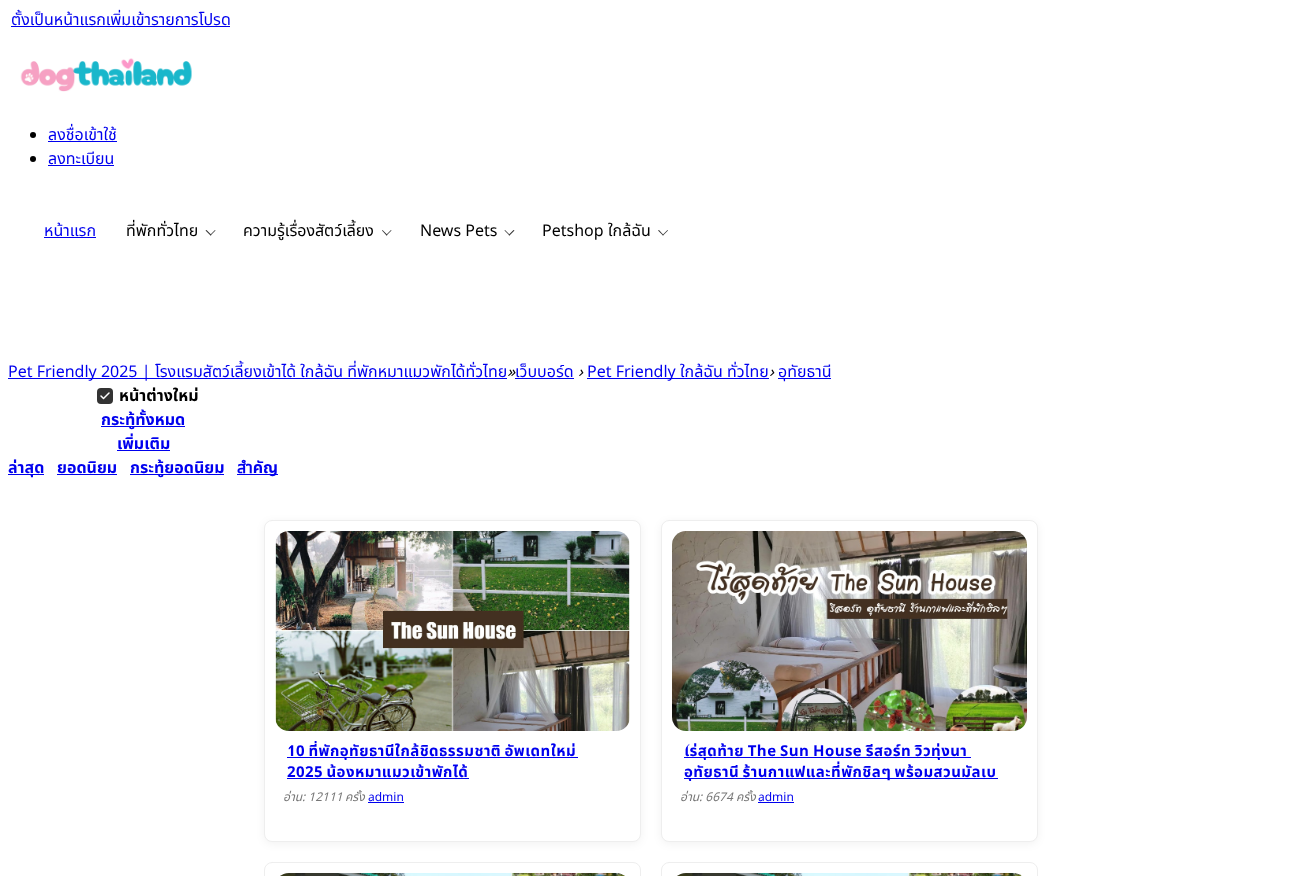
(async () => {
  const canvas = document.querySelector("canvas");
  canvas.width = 1301;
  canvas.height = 876;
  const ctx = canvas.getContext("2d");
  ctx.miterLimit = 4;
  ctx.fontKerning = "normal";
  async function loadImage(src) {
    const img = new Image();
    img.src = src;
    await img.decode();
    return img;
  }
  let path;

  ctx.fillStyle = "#ffffff";
  ctx.fillRect(0, 0, 1301, 876);
  ctx.fillStyle = "#0000ee";
  ctx.fillRect(11, 26, 219, 1);
  ctx.drawImage(await loadImage("img/1.png"), 20, 58, 172, 34);
  ctx.fillStyle = "#000000";
  ctx.beginPath();
  ctx.arc(33, 135, 3, 0, Math.PI * 2);
  ctx.fill();
  ctx.fillStyle = "#0000ee";
  ctx.fillRect(48, 141, 69, 1);
  ctx.fillStyle = "#000000";
  ctx.beginPath();
  ctx.arc(33, 159, 3, 0, Math.PI * 2);
  ctx.fill();
  ctx.fillStyle = "#0000ee";
  ctx.fillRect(48, 165, 66, 1);
  ctx.fillRect(44, 237, 52, 1);
  ctx.fillStyle = "#333333";
  path = new Path2D("M215 230L215.5 230.5L210.5 235.5L210 235Z");
  ctx.fill(path);
  path = new Path2D("M206.5 230L211.5 235L210.5 235.5L205.5 230.5Z");
  ctx.fill(path);
  path = new Path2D("M391 230L391.5 230.5L386.5 235.5L386 235Z");
  ctx.fill(path);
  path = new Path2D("M382.5 230L387.5 235L386.5 235.5L382 230.5Z");
  ctx.fill(path);
  path = new Path2D("M513.5 230L514.5 230.5L509.5 235.5L508.5 235Z");
  ctx.fill(path);
  path = new Path2D("M505 230L510 235L509.5 235.5L504.5 230.5Z");
  ctx.fill(path);
  path = new Path2D("M667.5 230L668 230.5L663 235.5L662.5 235Z");
  ctx.fill(path);
  path = new Path2D("M659 230L663.5 235L663 235.5L658 230.5Z");
  ctx.fill(path);
  for (const [x, y, w, h, color] of [
    [8, 378, 499, 1, "#0000ee"],
    [515, 378, 59, 1, "#0000ee"],
    [587, 378, 182, 1, "#0000ee"],
    [778, 378, 53, 1, "#0000ee"],
  ]) {
    ctx.fillStyle = color;
    ctx.fillRect(x, y, w, h);
  }
  ctx.fillStyle = "#333333";
  ctx.beginPath();
  ctx.roundRect(97, 388, 16, 16, 4);
  ctx.fill();
  path = new Path2D("M109 393L103.5 398.5L101 396");
  ctx.strokeStyle = "#ffffff";
  ctx.lineWidth = 1.5;
  ctx.lineCap = "round";
  ctx.lineJoin = "round";
  ctx.stroke(path);
  for (const [x, y, w, h, color] of [
    [101, 426, 84, 1, "#0000ee"],
    [117, 450, 53, 1, "#0000ee"],
    [8, 474, 36, 1, "#0000ee"],
    [57, 474, 60, 1, "#0000ee"],
    [130, 474, 94, 1, "#0000ee"],
    [237, 474, 41, 1, "#0000ee"],
  ]) {
    ctx.fillStyle = color;
    ctx.fillRect(x, y, w, h);
  }
  ctx.fillStyle = "rgba(0, 0, 0, 0.05)";
  ctx.filter = "blur(4px)";
  ctx.beginPath();
  ctx.roundRect(264, 522, 377, 322, 8);
  ctx.fill();
  ctx.filter = "none";
  ctx.fillStyle = "#ffffff";
  ctx.beginPath();
  ctx.roundRect(264.5, 520.5, 376, 321, 7.5);
  ctx.fill();
  ctx.strokeStyle = "#eeeeee";
  ctx.lineWidth = 1;
  ctx.lineJoin = "miter";
  ctx.stroke();
  ctx.drawImage(await loadImage("img/2.png"), 275, 531, 355, 200);
  for (const [x, y, w, h, color] of [
    [287, 757, 291, 1, "#0000ee"],
    [287, 778, 182, 1, "#0000ee"],
    [368, 802, 36, 1, "#0000ee"],
  ]) {
    ctx.fillStyle = color;
    ctx.fillRect(x, y, w, h);
  }
  ctx.fillStyle = "rgba(0, 0, 0, 0.05)";
  ctx.filter = "blur(4px)";
  ctx.beginPath();
  ctx.roundRect(661, 522, 377, 322, 8);
  ctx.fill();
  ctx.filter = "none";
  ctx.fillStyle = "#ffffff";
  ctx.beginPath();
  ctx.roundRect(661.5, 520.5, 376, 321, 7.5);
  ctx.fill();
  ctx.stroke();
  ctx.drawImage(await loadImage("img/3.png"), 672, 531, 355, 200);
  for (const [x, y, w, h, color] of [
    [684, 757, 287, 1, "#0000ee"],
    [684, 778, 314, 1, "#0000ee"],
    [758, 802, 36, 1, "#0000ee"],
  ]) {
    ctx.fillStyle = color;
    ctx.fillRect(x, y, w, h);
  }
  ctx.beginPath();
  ctx.roundRect(264.5, 862.5, 376, 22, 7.5);
  ctx.stroke();
  ctx.drawImage(await loadImage("img/4.png"), 280, 873, 345, 3);
  ctx.beginPath();
  ctx.roundRect(661.5, 862.5, 376, 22, 7.5);
  ctx.stroke();
  ctx.drawImage(await loadImage("img/5.png"), 677, 873, 345, 3);
  ctx.font = "16px Noto Sans Thai";
  for (const [text, x, y] of [
    ["ตั้งเป็นหน้าแรกเพิ่มเข้ารายการโปรด", 11, 25],
    ["ลงชื่อเข้าใช้", 48, 140],
    ["ลงทะเบียน", 48, 164],
    ["หน้าแรก", 44, 236],
  ]) {
    ctx.fillText(text, x, y);
  }
  ctx.fillStyle = "#000000";
  ctx.fillText("ที่พักทั่วไทย", 126, 236);
  ctx.fillText("ความรู้เรื่องสัตว์เลี้ยง", 243, 236);
  ctx.font = "16px 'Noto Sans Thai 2'";
  ctx.fillText("News Pets", 420, 236);
  ctx.fillText("Petshop", 542, 236);
  ctx.font = "16px Noto Sans Thai";
  ctx.fillText("ใกล้ฉัน", 608, 236);
  ctx.font = "16px 'Noto Sans Thai 2'";
  ctx.fillStyle = "#0000ee";
  ctx.fillText("Pet Friendly 2025 |", 8, 377);
  ctx.font = "16px Noto Sans Thai";
  ctx.fillText("โรงแรมสัตว์เลี้ยงเข้าได้ ใกล้ฉัน ที่พักหมาแมวพักได้ทั่วไทย", 155, 377);
  ctx.font = "italic 16px Noto Sans Thai";
  ctx.fillStyle = "#000000";
  ctx.fillText("»", 507, 377);
  ctx.font = "16px Noto Sans Thai";
  ctx.fillStyle = "#0000ee";
  ctx.fillText("เว็บบอร์ด", 515, 377);
  ctx.font = "italic 16px Noto Sans Thai";
  ctx.fillStyle = "#000000";
  ctx.fillText("›", 578, 377);
  ctx.font = "16px 'Noto Sans Thai 2'";
  ctx.fillStyle = "#0000ee";
  ctx.fillText("Pet Friendly", 587, 377);
  ctx.font = "16px Noto Sans Thai";
  ctx.fillText("ใกล้ฉัน ทั่วไทย", 680, 377);
  ctx.font = "italic 16px Noto Sans Thai";
  ctx.fillStyle = "#000000";
  ctx.fillText("›", 769, 377);
  ctx.font = "16px Noto Sans Thai";
  ctx.fillStyle = "#0000ee";
  ctx.fillText("อุทัยธานี", 778, 377);
  ctx.font = "bold 16px Noto Sans Thai";
  ctx.fillStyle = "#000000";
  ctx.fillText("หน้าต่างใหม่", 119, 401);
  ctx.fillStyle = "#0000ee";
  for (const [text, x, y] of [
    ["กระทู้ทั้งหมด", 101, 425],
    ["เพิ่มเติม", 117, 449],
    ["ล่าสุด", 8, 473],
    ["ยอดนิยม", 57, 473],
    ["กระทู้ยอดนิยม", 130, 473],
    ["สำคัญ", 237, 473],
  ]) {
    ctx.fillText(text, x, y);
  }
  ctx.save();
  ctx.beginPath();
  ctx.roundRect(287, 741, 331, 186, 14);
  ctx.clip();
  ctx.letterSpacing = "0.45px";
  ctx.wordSpacing = "-1px";
  ctx.font = "bold 15px Noto Sans Thai";
  ctx.fillText("10 ที่พักอุทัยธานีใกล้ชิดธรรมชาติ อัพเดทใหม่", 287, 756);
  ctx.restore();
  ctx.letterSpacing = "0.45px";
  ctx.wordSpacing = "-1px";
  ctx.font = "bold 15px Noto Sans Thai";
  ctx.fillText("2025 น้องหมาแมวเข้าพักได้", 287, 777);
  ctx.letterSpacing = "0px";
  ctx.wordSpacing = "0px";
  ctx.font = "italic 12px 'Noto Sans Thai 2'";
  ctx.fillStyle = "#777777";
  ctx.fillText("อ่าน", 283, 801);
  ctx.font = "italic 12px Noto Sans Thai";
  ctx.fillText(": 12111", 302, 801);
  ctx.font = "italic 12px 'Noto Sans Thai 2'";
  ctx.fillText("ครั้ง", 345, 801);
  ctx.font = "12px 'Noto Sans Thai 2'";
  ctx.fillStyle = "#0000ee";
  ctx.fillText("admin", 368, 801);
  ctx.save();
  ctx.beginPath();
  ctx.roundRect(684, 741, 331, 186, 14);
  ctx.clip();
  ctx.letterSpacing = "0.45px";
  ctx.wordSpacing = "-0.75px";
  ctx.font = "bold 15px Noto Sans Thai";
  ctx.fillText("ไร่สุดท้าย The Sun House รีสอร์ท วิวทุ่งนา", 684, 756);
  ctx.wordSpacing = "-1px";
  ctx.fillText("อุทัยธานี ร้านกาแฟและที่พักชิลๆ พร้อมสวนมัลเบ", 684, 777);
  ctx.restore();
  ctx.font = "italic 12px 'Noto Sans Thai 2'";
  ctx.fillStyle = "#777777";
  ctx.fillText("อ่าน", 680, 801);
  ctx.font = "italic 12px Noto Sans Thai";
  ctx.fillText(": 6674", 699, 801);
  ctx.font = "italic 12px 'Noto Sans Thai 2'";
  ctx.fillText("ครั้ง", 736, 801);
  ctx.font = "12px 'Noto Sans Thai 2'";
  ctx.fillStyle = "#0000ee";
  ctx.fillText("admin", 758, 801);
})();
